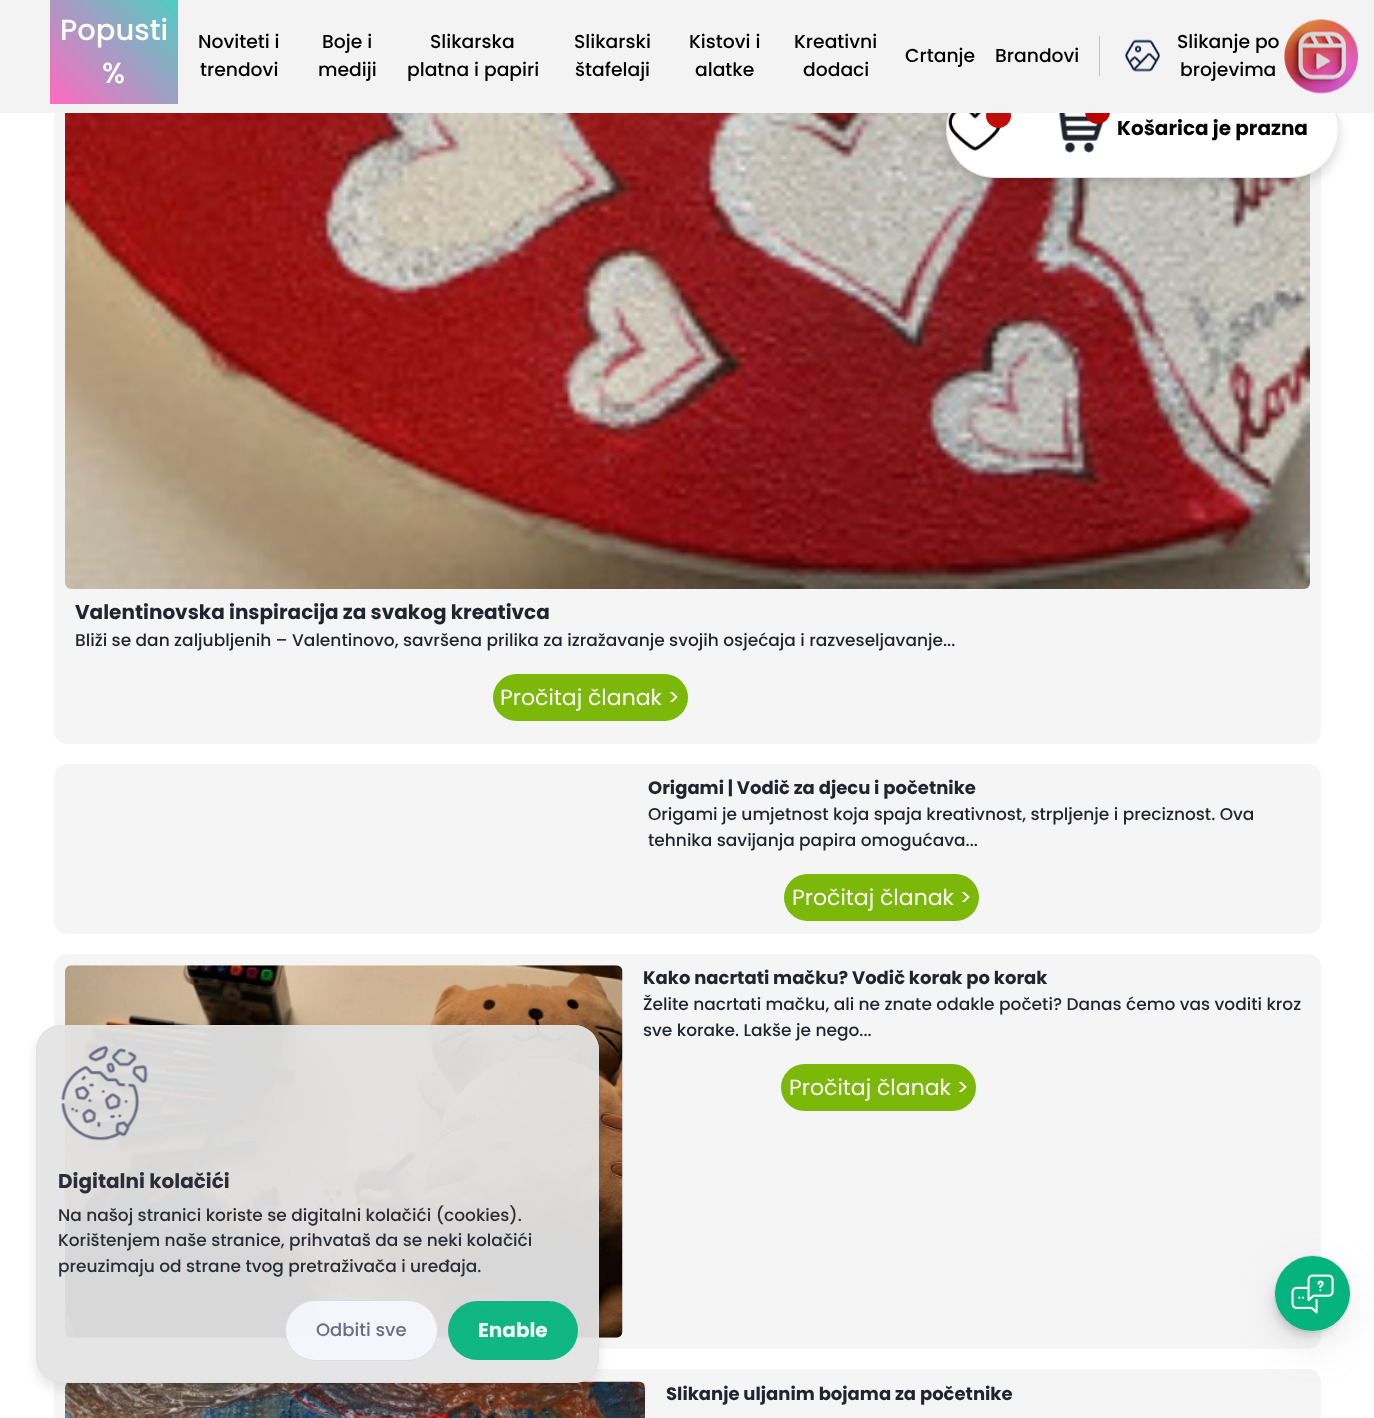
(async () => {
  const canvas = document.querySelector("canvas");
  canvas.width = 1374;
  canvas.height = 1418;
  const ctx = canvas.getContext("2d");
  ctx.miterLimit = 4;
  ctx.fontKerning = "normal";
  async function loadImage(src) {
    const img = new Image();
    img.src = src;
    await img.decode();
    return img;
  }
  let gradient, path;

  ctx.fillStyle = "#ffffff";
  ctx.fillRect(0, 0, 1374, 1418);
  ctx.fillStyle = "#f5f5f5";
  ctx.beginPath();
  ctx.roundRect(54, -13, 1267, 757, 13);
  ctx.fill();
  ctx.drawImage(await loadImage("img/5.png"), 65, 113, 1245, 476);
  ctx.fillStyle = "rgba(0, 0, 0, 0.15)";
  ctx.filter = "blur(6px)";
  ctx.beginPath();
  ctx.roundRect(946, 86, 393, 98, 49);
  ctx.fill();
  ctx.filter = "none";
  ctx.fillStyle = "#ffffff";
  ctx.beginPath();
  ctx.roundRect(946, 80, 393, 98, 49);
  ctx.fill();
  ctx.beginPath();
  ctx.roundRect(946.5, 80.5, 392, 97, 48.5);
  ctx.strokeStyle = "rgba(0, 0, 0, 0.1)";
  ctx.stroke();
  ctx.drawImage(await loadImage("img/3.png"), 948, 113, 53, 38);
  ctx.fillStyle = "#c40b0b";
  ctx.beginPath();
  ctx.arc(998.5, 115.5, 12.5, 0, Math.PI * 2);
  ctx.fill();
  ctx.drawImage(await loadImage("img/4.png"), 1059, 113, 45, 40);
  ctx.fillStyle = "#ba0000";
  ctx.beginPath();
  ctx.arc(1097.5, 111.5, 12.5, 0, Math.PI * 2);
  ctx.fill();
  ctx.fillStyle = "#f3f3f3";
  ctx.fillRect(0, 0, 1374, 113);
  gradient = ctx.createLinearGradient(56, 110, 172, -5.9);
  gradient.addColorStop(0, "#ff6ac1");
  gradient.addColorStop(1, "#4ecdc4");
  ctx.fillStyle = gradient;
  ctx.fillRect(50, 0, 128, 104);
  ctx.fillStyle = "#c1c1c1";
  ctx.fillRect(1099, 36, 1, 40);
  ctx.drawImage(await loadImage("img/1.png"), 1125, 39, 35, 33);
  ctx.drawImage(await loadImage("img/2.png"), 1284, 19, 74, 75);
  ctx.fillStyle = "#7bb809";
  ctx.beginPath();
  ctx.roundRect(493, 674, 195, 47, 23.5);
  ctx.fill();
  ctx.fillStyle = "#f5f5f5";
  ctx.beginPath();
  ctx.roundRect(54, 764, 1267, 170, 13);
  ctx.fill();
  ctx.fillStyle = "#7bb809";
  ctx.beginPath();
  ctx.roundRect(784, 874, 195, 47, 23.5);
  ctx.fill();
  ctx.fillStyle = "#f5f5f5";
  ctx.beginPath();
  ctx.roundRect(54, 954, 1267, 395, 13);
  ctx.fill();
  ctx.drawImage(await loadImage("img/6.png"), 65, 965, 558, 373);
  ctx.fillStyle = "#7bb809";
  ctx.beginPath();
  ctx.roundRect(781, 1064, 195, 47, 23.5);
  ctx.fill();
  ctx.fillStyle = "#f5f5f5";
  ctx.beginPath();
  ctx.roundRect(54, 1369, 1267, 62, 13);
  ctx.fill();
  ctx.drawImage(await loadImage("img/7.png"), 65, 1381, 580, 37);
  ctx.save();
  path = new Path2D("M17 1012H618V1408H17ZM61 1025H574C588 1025 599 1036 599 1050V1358C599 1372 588 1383 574 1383H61C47 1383 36 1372 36 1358V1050C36 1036 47 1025 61 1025Z");
  ctx.clip(path, "evenodd");
  ctx.fillStyle = "rgba(0, 0, 0, 0.1)";
  ctx.filter = "blur(6px)";
  ctx.beginPath();
  ctx.roundRect(36, 1031, 563, 358, 25);
  ctx.fill();
  ctx.filter = "none";
  ctx.restore();
  ctx.fillStyle = "rgba(228, 228, 228, 0.95)";
  ctx.beginPath();
  ctx.roundRect(36, 1025, 563, 358, 25);
  ctx.fill();
  ctx.beginPath();
  ctx.roundRect(36.5, 1025.5, 562, 357, 24.5);
  ctx.strokeStyle = "rgba(224, 224, 224, 0.95)";
  ctx.stroke();
  ctx.drawImage(await loadImage("img/8.png"), 61, 1046, 87, 95);
  ctx.fillStyle = "rgba(246, 247, 252, 0.95)";
  ctx.beginPath();
  ctx.roundRect(285, 1300, 153, 61, 30.5);
  ctx.fill();
  ctx.beginPath();
  ctx.roundRect(285.5, 1300.5, 152, 60, 30);
  ctx.strokeStyle = "rgba(0, 0, 0, 0.1)";
  ctx.stroke();
  ctx.fillStyle = "rgba(5, 180, 124, 0.95)";
  ctx.beginPath();
  ctx.roundRect(448, 1301, 130, 59, 29.5);
  ctx.fill();
  ctx.fillStyle = "rgba(0, 0, 0, 0.2)";
  ctx.filter = "blur(6px)";
  ctx.beginPath();
  ctx.roundRect(1276, 1271, 63, 63, 31.5);
  ctx.fill();
  ctx.filter = "none";
  ctx.beginPath();
  ctx.roundRect(1274.5, 1255.5, 76, 77, 38);
  ctx.strokeStyle = "rgba(150, 150, 150, 0.2)";
  ctx.stroke();
  ctx.fillStyle = "rgba(150, 150, 150, 0.2)";
  ctx.filter = "blur(19px)";
  ctx.beginPath();
  ctx.roundRect(1275, 1269, 75, 75, 37.5);
  ctx.fill();
  ctx.filter = "none";
  ctx.fillStyle = "#05b47c";
  ctx.beginPath();
  ctx.arc(1312.5, 1293.5, 37.5, 0, Math.PI * 2);
  ctx.fill();
  ctx.drawImage(await loadImage("img/9.png"), 1291, 1274, 43, 40);
  ctx.font = "500 29px Poppins";
  ctx.fillStyle = "#ffffff";
  ctx.fillText("Popusti", 60, 40);
  ctx.fillText("%", 102, 83);
  ctx.font = "500 18.75px Poppins";
  ctx.fillStyle = "#000000";
  for (const [text, x, y] of [
    ["Noviteti i", 198, 48],
    ["trendovi", 200, 76],
    ["Boje i", 322, 48],
    ["mediji", 318, 76],
    ["Slikarska", 430, 48],
    ["platna i papiri", 407, 76],
    ["Slikarski", 574, 48],
    ["štafelaji", 575, 76],
    ["Kistovi i", 689, 48],
    ["alatke", 695, 76],
    ["Kreativni", 794, 48],
    ["dodaci", 803, 76],
    ["Crtanje", 905, 62],
    ["Brandovi", 995, 62],
    ["Slikanje po", 1177, 48],
    ["brojevima", 1180, 76],
  ]) {
    ctx.fillText(text, x, y);
  }
  ctx.font = "bold 20px Poppins";
  ctx.fillText("Košarica je prazna", 1117, 135);
  ctx.fillStyle = "#1f242d";
  ctx.fillText("Valentinovska inspiracija za svakog kreativca", 75, 619);
  ctx.font = "500 17px Poppins";
  ctx.fillText("Bliži se dan zaljubljenih – Valentinovo, savršena prilika za izražavanje svojih osjećaja i razveseljavanje...", 75, 646);
  ctx.font = "22px Poppins";
  ctx.fillStyle = "#ffffff";
  ctx.fillText("Pročitaj članak >", 500, 705);
  ctx.font = "bold 18px Poppins";
  ctx.fillStyle = "#1f242d";
  ctx.fillText("Origami | Vodič za djecu i početnike", 648, 794);
  ctx.font = "500 17px Poppins";
  ctx.fillText("Origami je umjetnost koja spaja kreativnost, strpljenje i preciznost. Ova", 648, 820);
  ctx.fillText("tehnika savijanja papira omogućava...", 648, 846);
  ctx.font = "22px Poppins";
  ctx.fillStyle = "#ffffff";
  ctx.fillText("Pročitaj članak >", 792, 905);
  ctx.font = "bold 18px Poppins";
  ctx.fillStyle = "#1f242d";
  ctx.fillText("Kako nacrtati mačku? Vodič korak po korak", 643, 984);
  ctx.font = "500 17px Poppins";
  ctx.fillText("Želite nacrtati mačku, ali ne znate odakle početi? Danas ćemo vas voditi kroz", 643, 1010);
  ctx.fillText("sve korake. Lakše je nego...", 643, 1036);
  ctx.font = "22px Poppins";
  ctx.fillStyle = "#ffffff";
  ctx.fillText("Pročitaj članak >", 789, 1095);
  ctx.font = "bold 18px Poppins";
  ctx.fillStyle = "#1f242d";
  ctx.fillText("Slikanje uljanim bojama za početnike", 666, 1400);
  ctx.font = "bold 20px Poppins";
  ctx.fillStyle = "#292d36";
  ctx.fillText("Digitalni kolačići", 58, 1188);
  ctx.font = "500 17px Poppins";
  for (const [text, x, y] of [
    ["Na našoj stranici koriste se digitalni kolačići (cookies).", 58, 1221],
    ["Korištenjem naše stranice, prihvataš da se neki kolačići", 58, 1246],
    ["preuzimaju od strane tvog pretraživača i uređaja.", 58, 1272],
  ]) {
    ctx.fillText(text, x, y);
  }
  ctx.font = "500 18px Poppins";
  ctx.fillStyle = "#696e86";
  ctx.fillText("Odbiti sve", 316, 1336);
  ctx.font = "bold 20px Poppins";
  ctx.fillStyle = "#f3fbf9";
  ctx.fillText("Enable", 478, 1337);
})();
